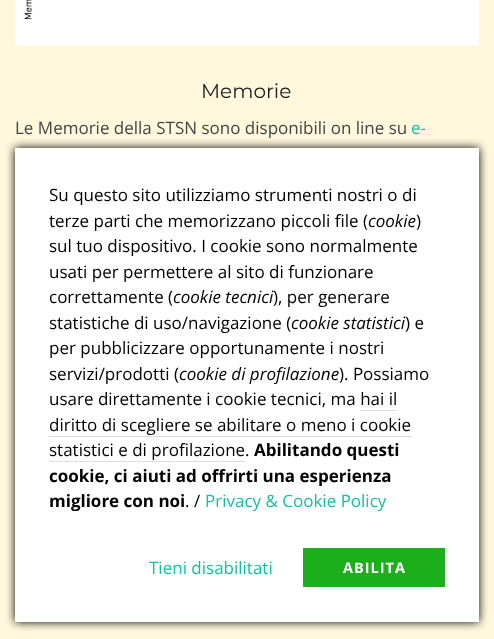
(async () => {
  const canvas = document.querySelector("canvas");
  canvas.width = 494;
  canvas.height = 639;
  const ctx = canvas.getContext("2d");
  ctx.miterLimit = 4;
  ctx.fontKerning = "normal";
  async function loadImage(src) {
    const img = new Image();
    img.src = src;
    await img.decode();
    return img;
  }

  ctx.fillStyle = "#fff8dc";
  ctx.fillRect(0, 0, 494, 639);
  ctx.drawImage(await loadImage("img/1.png"), 15, 0, 464, 45);
  ctx.fillStyle = "#000000";
  ctx.filter = "blur(5px)";
  ctx.beginPath();
  ctx.rect(15, 148, 464, 474);
  ctx.fill();
  ctx.filter = "none";
  for (const [x, y, w, h, color] of [
    [15, 148, 464, 474, "#ffffff"],
    [360, 410, 37, 1, "#dddddd"],
    [49, 436, 362, 1, "#dddddd"],
    [49, 461, 196, 1, "#dddddd"],
    [303, 548, 142, 39, "#1dae1c"],
  ]) {
    ctx.fillStyle = color;
    ctx.fillRect(x, y, w, h);
  }
  ctx.font = "100 20px Montserrat";
  ctx.fillStyle = "#212121";
  ctx.fillText("Memorie", 201, 98);
  ctx.font = "17px Open Sans";
  ctx.fillStyle = "#444444";
  ctx.fillText("Le Memorie della STSN sono disponibili on line su", 15, 134);
  ctx.fillStyle = "#13c0a2";
  ctx.fillText("e-", 411, 134);
  ctx.fillStyle = "#000000";
  ctx.fillText("Su questo sito utilizziamo strumenti nostri o di", 49, 201);
  ctx.fillText("terze parti che memorizzano piccoli file (", 49, 227);
  ctx.font = "italic 17px Open Sans";
  ctx.fillText("cookie", 368, 227);
  ctx.font = "17px Open Sans";
  for (const [text, x, y] of [
    [")", 416, 227],
    ["sul tuo dispositivo. I cookie sono normalmente", 49, 252],
    ["usati per permettere al sito di funzionare", 49, 278],
    ["correttamente (", 49, 303],
  ]) {
    ctx.fillText(text, x, y);
  }
  ctx.font = "italic 17px Open Sans";
  ctx.fillText("cookie tecnici", 173, 303);
  ctx.font = "17px Open Sans";
  ctx.fillText("), per generare", 273, 303);
  ctx.fillText("statistiche di uso/navigazione (", 49, 329);
  ctx.font = "italic 17px Open Sans";
  ctx.fillText("cookie statistici", 291, 329);
  ctx.font = "17px Open Sans";
  for (const [text, x, y] of [
    [") e", 405, 329],
    ["per pubblicizzare opportunamente i nostri", 49, 354],
    ["servizi/prodotti (", 49, 380],
  ]) {
    ctx.fillText(text, x, y);
  }
  ctx.font = "italic 17px Open Sans";
  ctx.fillText("cookie di profilazione", 179, 380);
  ctx.font = "17px Open Sans";
  for (const [text, x, y] of [
    ["). Possiamo", 339, 380],
    ["usare direttamente i cookie tecnici, ma hai il", 49, 405],
    ["diritto di scegliere se abilitare o meno i cookie", 49, 431],
    ["statistici e di profilazione.", 49, 456],
  ]) {
    ctx.fillText(text, x, y);
  }
  ctx.font = "bold 17px Open Sans";
  for (const [text, x, y] of [
    ["Abilitando questi", 254, 456],
    ["cookie, ci aiuti ad offrirti una esperienza", 49, 482],
    ["migliore con noi", 49, 507],
  ]) {
    ctx.fillText(text, x, y);
  }
  ctx.font = "17px Open Sans";
  ctx.fillText(". /", 185, 507);
  ctx.fillStyle = "#13c0a2";
  ctx.fillText("Privacy & Cookie Policy", 205, 507);
  ctx.fillText("Tieni disabilitati", 149, 574);
  ctx.letterSpacing = "1px";
  ctx.font = "bold 14.5px Open Sans";
  ctx.fillStyle = "#ffffff";
  ctx.fillText("ABILITA", 343, 573);
})();
